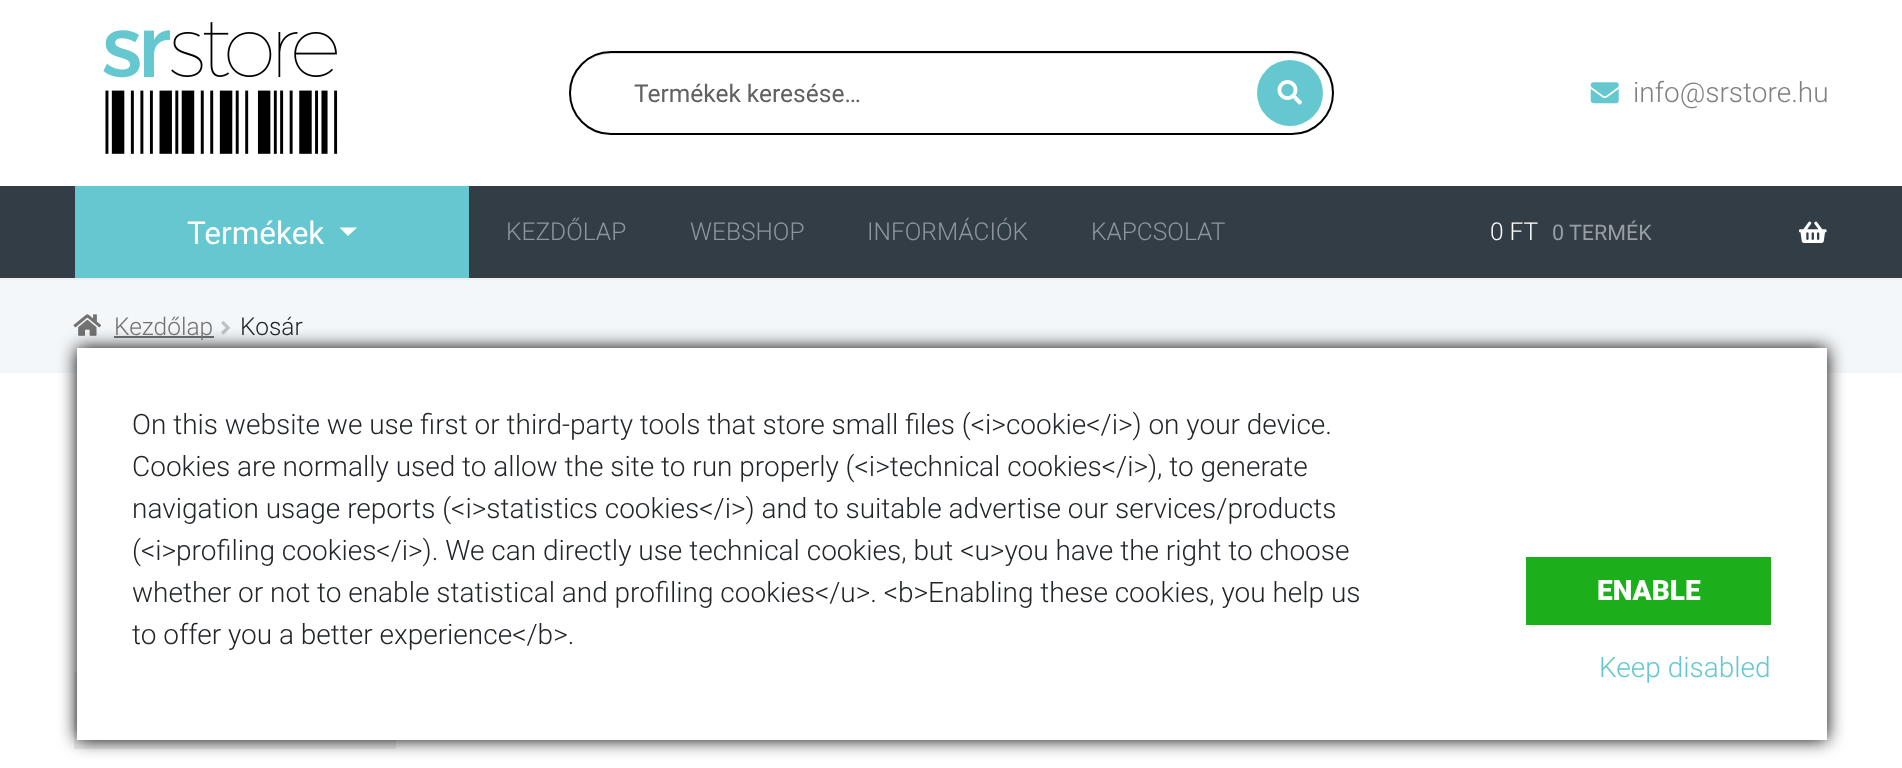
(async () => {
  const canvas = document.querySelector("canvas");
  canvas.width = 1902;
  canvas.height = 768;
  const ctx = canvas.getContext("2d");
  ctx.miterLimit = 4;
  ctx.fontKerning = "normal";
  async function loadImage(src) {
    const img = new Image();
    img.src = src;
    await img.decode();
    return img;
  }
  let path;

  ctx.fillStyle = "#ffffff";
  ctx.fillRect(0, 0, 1902, 768);
  ctx.fillStyle = "#f0f0f0";
  ctx.fillRect(0, 278, 1902, 2);
  ctx.drawImage(await loadImage("img/1.png"), 103, 22, 235, 132);
  ctx.fillStyle = "#dfdfdf";
  path = new Path2D("M611 54H1292C1314 54 1332 72 1332 94V93C1332 71 1314 53 1292 53H611C597 53 584 61 577 72C584 61 597 54 611 54Z");
  ctx.fill(path);
  ctx.beginPath();
  ctx.roundRect(570, 52, 763, 82, 41);
  ctx.strokeStyle = "#000000";
  ctx.lineWidth = 2;
  ctx.stroke();
  ctx.fillStyle = "#65c8d0";
  ctx.beginPath();
  ctx.arc(1290, 93, 33, 0, Math.PI * 2);
  ctx.fill();
  ctx.drawImage(await loadImage("img/2.png"), 1277, 80, 25, 25);
  ctx.drawImage(await loadImage("img/3.png"), 1590, 82, 29, 22);
  ctx.fillStyle = "#323d45";
  ctx.fillRect(0, 186, 1902, 92);
  ctx.fillStyle = "#65c8d0";
  ctx.fillRect(75, 186, 394, 92);
  ctx.fillStyle = "#ffffff";
  path = new Path2D("M339.5 227.5H357L348 236Z");
  ctx.fill(path);
  ctx.drawImage(await loadImage("img/4.png"), 1799, 221, 28, 22);
  ctx.fillStyle = "#f4f7f9";
  ctx.fillRect(0, 280, 1902, 93);
  ctx.drawImage(await loadImage("img/5.png"), 73, 314, 29, 22);
  ctx.fillStyle = "#727272";
  ctx.fillRect(114, 336, 100, 2);
  ctx.drawImage(await loadImage("img/6.png"), 221, 321, 9, 14);
  ctx.fillStyle = "#eeeeee";
  ctx.fillRect(74, 672, 322, 77);
  ctx.fillStyle = "#000000";
  ctx.filter = "blur(9px)";
  ctx.beginPath();
  ctx.rect(77, 348, 1750, 392);
  ctx.fill();
  ctx.filter = "none";
  ctx.fillStyle = "#ffffff";
  ctx.fillRect(77, 348, 1750, 392);
  ctx.fillStyle = "#1dae1c";
  ctx.fillRect(1526, 557, 245, 68);
  ctx.font = "24.5px Roboto";
  ctx.fillStyle = "#616161";
  ctx.fillText("Termékek keresése…", 634, 102);
  ctx.font = "300 28px Roboto";
  ctx.fillStyle = "#808080";
  ctx.fillText("info@srstore.hu", 1633, 102);
  ctx.font = "31.5px Roboto";
  ctx.fillStyle = "#ffffff";
  ctx.fillText("Termékek", 187, 244);
  ctx.font = "300 24.5px Roboto";
  ctx.fillStyle = "#8f969a";
  for (const [text, x, y] of [
    ["KEZDŐLAP", 506, 240],
    ["WEBSHOP", 690, 240],
    ["INFORMÁCIÓK", 867, 240],
    ["KAPCSOLAT", 1091, 240],
  ]) {
    ctx.fillText(text, x, y);
  }
  ctx.fillStyle = "#ffffff";
  ctx.fillText("0 FT", 1490, 240);
  ctx.font = "21.5px Roboto";
  ctx.fillStyle = "#999ea2";
  ctx.fillText("0 TERMÉK", 1552, 240);
  ctx.font = "300 24.5px Roboto";
  ctx.fillStyle = "#727272";
  ctx.fillText("Kezdőlap", 114, 335);
  ctx.fillStyle = "#212529";
  ctx.fillText("Kosár", 240, 335);
  ctx.font = "300 28px Roboto";
  for (const [text, x, y] of [
    ["On this website we use first or third-party tools that store small files (<i>cookie<\/i>) on your device.", 132, 434],
    ["Cookies are normally used to allow the site to run properly (<i>technical cookies<\/i>), to generate", 132, 476],
    ["navigation usage reports (<i>statistics cookies<\/i>) and to suitable advertise our services/products", 132, 518],
    ["(<i>profiling cookies<\/i>). We can directly use technical cookies, but <u>you have the right to choose", 132, 560],
    ["whether or not to enable statistical and profiling cookies<\/u>. <b>Enabling these cookies, you help us", 132, 602],
    ["to offer you a better experience<\/b>.", 132, 644],
  ]) {
    ctx.fillText(text, x, y);
  }
  ctx.font = "900 28px Roboto";
  ctx.fillStyle = "#ffffff";
  ctx.fillText("ENABLE", 1597, 600);
  ctx.font = "300 28px Roboto";
  ctx.fillStyle = "#65c8d0";
  ctx.fillText("Keep disabled", 1599, 677);
})();
